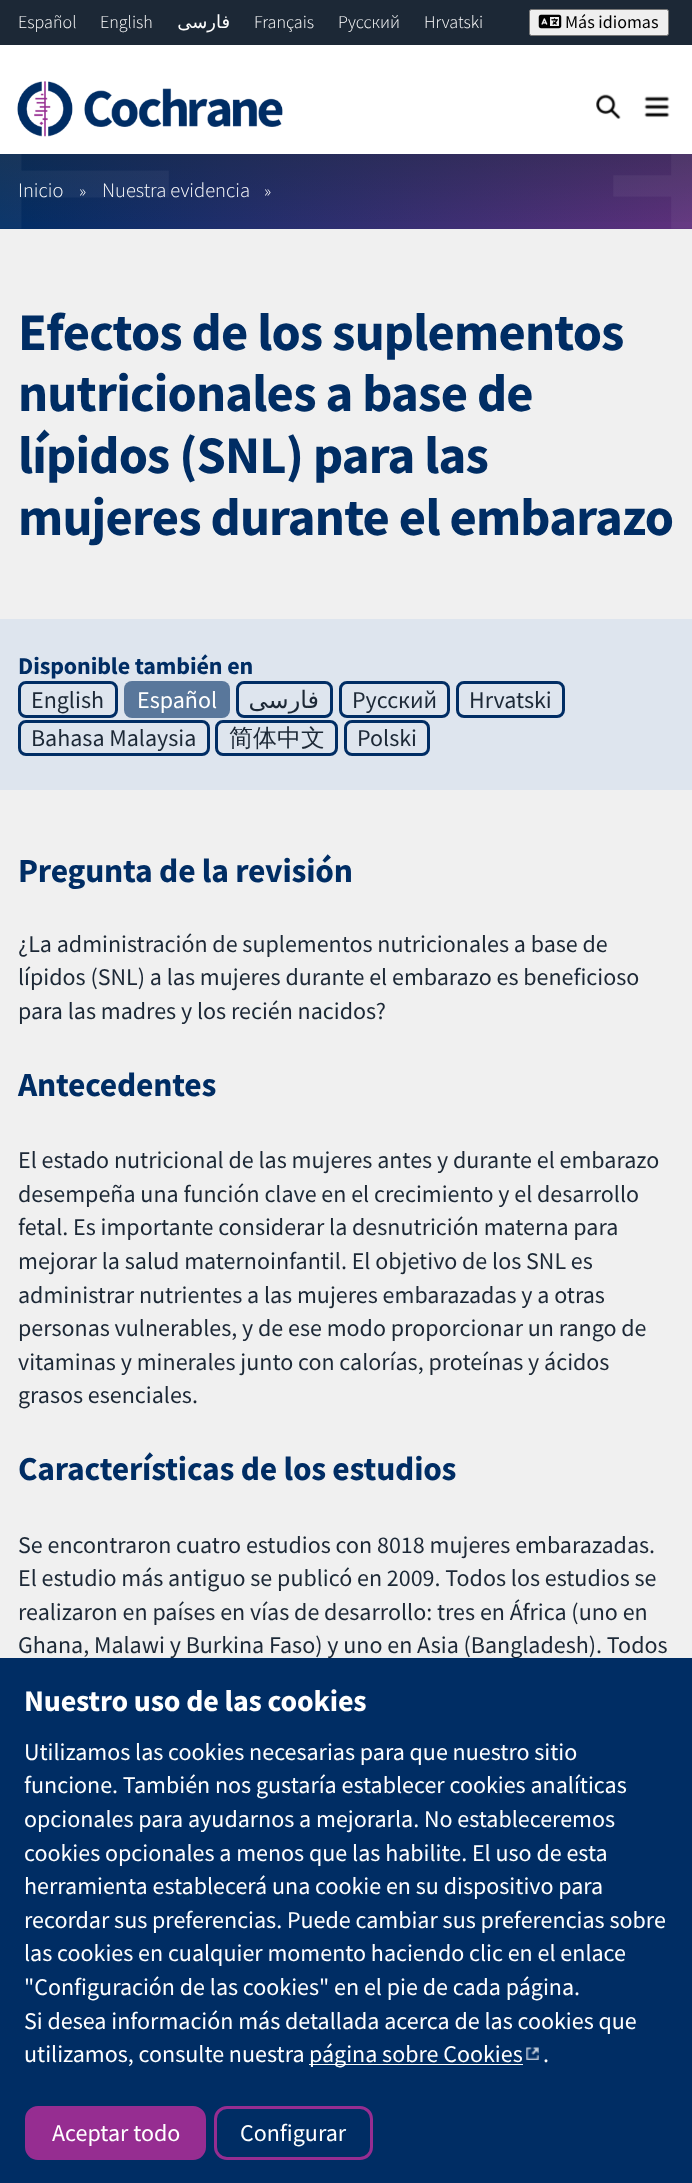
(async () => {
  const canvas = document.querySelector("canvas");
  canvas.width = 692;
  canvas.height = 2183;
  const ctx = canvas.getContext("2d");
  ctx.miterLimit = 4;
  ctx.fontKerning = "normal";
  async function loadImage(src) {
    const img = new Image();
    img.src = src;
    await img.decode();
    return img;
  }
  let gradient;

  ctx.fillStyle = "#f0f0f0";
  ctx.fillRect(0, 0, 692, 2183);
  ctx.fillStyle = "#1c2836";
  ctx.fillRect(0, 0, 692, 45);
  ctx.fillStyle = "#ffffff";
  ctx.fillRect(0, 45, 692, 109);
  ctx.fillStyle = "#efefef";
  ctx.beginPath();
  ctx.roundRect(529.5, 9.5, 139, 26, 2);
  ctx.fill();
  ctx.strokeStyle = "#767676";
  ctx.stroke();
  ctx.drawImage(await loadImage("img/1.png"), 538, 14, 24, 15);
  ctx.drawImage(await loadImage("img/2.png"), 17, 81, 266, 56);
  ctx.drawImage(await loadImage("img/3.png"), 596, 94, 25, 25);
  ctx.drawImage(await loadImage("img/4.png"), 644, 96, 26, 22);
  gradient = ctx.createLinearGradient(0, 191, 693, 191);
  gradient.addColorStop(0, "#002d64");
  gradient.addColorStop(1, "#5f307d");
  ctx.fillStyle = gradient;
  ctx.fillRect(0, 154, 692, 75);
  gradient = ctx.createLinearGradient(346, 34, 346, 229);
  gradient.addColorStop(0, "#1c2836");
  gradient.addColorStop(1, "rgba(28, 40, 54, 0)");
  ctx.fillStyle = gradient;
  ctx.fillRect(0, 154, 692, 68);
  ctx.drawImage(await loadImage("img/5.png"), 0, 154, 169, 75);
  ctx.drawImage(await loadImage("img/6.png"), 613, 154, 79, 75);
  ctx.fillStyle = "#dee5ee";
  ctx.fillRect(0, 619, 692, 171);
  ctx.beginPath();
  ctx.roundRect(19.5, 682.5, 97, 34, 6.5);
  ctx.strokeStyle = "#002d64";
  ctx.lineWidth = 3;
  ctx.stroke();
  ctx.fillStyle = "#59779b";
  ctx.beginPath();
  ctx.roundRect(124, 681, 106, 37, 8);
  ctx.fill();
  ctx.beginPath();
  ctx.roundRect(237.5, 682.5, 94, 34, 6.5);
  ctx.stroke();
  ctx.beginPath();
  ctx.roundRect(340.5, 682.5, 108, 34, 6.5);
  ctx.stroke();
  ctx.beginPath();
  ctx.roundRect(457.5, 682.5, 106, 34, 6.5);
  ctx.stroke();
  ctx.beginPath();
  ctx.roundRect(19.5, 721.5, 189, 33, 6.5);
  ctx.stroke();
  ctx.beginPath();
  ctx.roundRect(216.5, 721.5, 120, 33, 6.5);
  ctx.stroke();
  ctx.beginPath();
  ctx.roundRect(345.5, 721.5, 83, 33, 6.5);
  ctx.stroke();
  ctx.font = "300 18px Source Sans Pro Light";
  ctx.fillStyle = "#ffffff";
  ctx.fillText("Español", 18, 28);
  ctx.fillText("English", 100, 28);
  ctx.direction = "rtl";
  ctx.font = "18px DejaVu Sans";
  ctx.fillText("فارسی", 230, 28);
  ctx.direction = "ltr";
  ctx.font = "300 18px Source Sans Pro Light";
  for (const [text, x, y] of [
    ["Français", 254, 28],
    ["Русский", 338, 28],
    ["Hrvatski", 424, 28],
  ]) {
    ctx.fillText(text, x, y);
  }
  ctx.font = "18px Source Sans Pro";
  ctx.fillStyle = "#000000";
  ctx.fillText("Más idiomas", 565, 28);
  ctx.font = "300 20.5px Source Sans Pro Light";
  ctx.fillStyle = "#ffffff";
  ctx.fillText("Inicio", 18, 197);
  ctx.font = "300 18px Source Sans Pro Light";
  ctx.fillText("»", 79, 197);
  ctx.font = "300 20.5px Source Sans Pro Light";
  ctx.fillText("Nuestra evidencia", 102, 197);
  ctx.font = "300 18px Source Sans Pro Light";
  ctx.fillText("»", 264, 197);
  ctx.letterSpacing = "-0.8px";
  ctx.font = "bold 52.75px Source Sans Pro";
  ctx.fillStyle = "#002d64";
  for (const [text, x, y] of [
    ["Efectos de los suplementos", 18, 350],
    ["nutricionales a base de", 18, 411],
    ["lípidos (SNL) para las", 18, 473],
    ["mujeres durante el embarazo", 18, 535],
  ]) {
    ctx.fillText(text, x, y);
  }
  ctx.letterSpacing = "-0.1px";
  ctx.font = "bold 24px Source Sans Pro";
  ctx.fillText("Disponible también en", 18, 674);
  ctx.letterSpacing = "0px";
  ctx.font = "24px Source Sans Pro";
  ctx.fillStyle = "#1c2836";
  ctx.fillText("English", 31, 708);
  ctx.fillStyle = "#ffffff";
  ctx.fillText("Español", 137, 708);
  ctx.direction = "rtl";
  ctx.font = "24px DejaVu Sans";
  ctx.fillStyle = "#1c2836";
  ctx.fillText("فارسی", 319, 708);
  ctx.direction = "ltr";
  ctx.font = "24px Source Sans Pro";
  for (const [text, x, y] of [
    ["Русский", 352, 708],
    ["Hrvatski", 469, 708],
    ["Bahasa Malaysia", 31, 746],
  ]) {
    ctx.fillText(text, x, y);
  }
  ctx.font = "500 24px WenQuanYi Zen Hei";
  ctx.fillText("简体中文", 229, 746);
  ctx.font = "24px Source Sans Pro";
  ctx.fillText("Polski", 357, 746);
  ctx.letterSpacing = "-0.2px";
  ctx.font = "bold 33.6px Source Sans Pro";
  ctx.fillStyle = "#002d64";
  ctx.fillText("Pregunta de la revisión", 18, 882);
  ctx.letterSpacing = "0px";
  ctx.font = "24px Source Sans Pro";
  ctx.fillStyle = "#1c2836";
  for (const [text, x, y] of [
    ["¿La administración de suplementos nutricionales a base de", 18, 952],
    ["lípidos (SNL) a las mujeres durante el embarazo es beneficioso", 18, 985],
    ["para las madres y los recién nacidos?", 18, 1019],
  ]) {
    ctx.fillText(text, x, y);
  }
  ctx.letterSpacing = "-0.2px";
  ctx.font = "bold 33.6px Source Sans Pro";
  ctx.fillStyle = "#002d64";
  ctx.fillText("Antecedentes", 18, 1096);
  ctx.letterSpacing = "0px";
  ctx.font = "24px Source Sans Pro";
  ctx.fillStyle = "#1c2836";
  for (const [text, x, y] of [
    ["El estado nutricional de las mujeres antes y durante el embarazo", 18, 1168],
    ["desempeña una función clave en el crecimiento y el desarrollo", 18, 1202],
    ["fetal. Es importante considerar la desnutrición materna para", 18, 1235],
    ["mejorar la salud maternoinfantil. El objetivo de los SNL es", 18, 1269],
    ["administrar nutrientes a las mujeres embarazadas y a otras", 18, 1303],
    ["personas vulnerables, y de ese modo proporcionar un rango de", 18, 1336],
    ["vitaminas y minerales junto con calorías, proteínas y ácidos", 18, 1370],
    ["grasos esenciales.", 18, 1403],
  ]) {
    ctx.fillText(text, x, y);
  }
  ctx.letterSpacing = "-0.2px";
  ctx.font = "bold 33.6px Source Sans Pro";
  ctx.fillStyle = "#002d64";
  ctx.fillText("Características de los estudios", 18, 1480);
  ctx.letterSpacing = "0px";
  ctx.font = "24px Source Sans Pro";
  ctx.fillStyle = "#1c2836";
  for (const [text, x, y] of [
    ["Se encontraron cuatro estudios con 8018 mujeres embarazadas.", 18, 1553],
    ["El estudio más antiguo se publicó en 2009. Todos los estudios se", 18, 1586],
    ["realizaron en países en vías de desarrollo: tres en África (uno en", 18, 1620],
    ["Ghana, Malawi y Burkina Faso) y uno en Asia (Bangladesh). Todos", 18, 1653],
  ]) {
    ctx.fillText(text, x, y);
  }
  ctx.fillStyle = "#002d64";
  ctx.fillRect(0, 1658, 692, 525);
  ctx.letterSpacing = "-0.15px";
  ctx.font = "bold 30px Source Sans Pro";
  ctx.fillStyle = "#ffffff";
  ctx.fillText("Nuestro uso de las cookies", 24, 1711);
  ctx.letterSpacing = "0px";
  ctx.font = "24px Source Sans Pro";
  for (const [text, x, y] of [
    ["Utilizamos las cookies necesarias para que nuestro sitio", 24, 1760],
    ["funcione. También nos gustaría establecer cookies analíticas", 24, 1793],
    ["opcionales para ayudarnos a mejorarla. No estableceremos", 24, 1827],
    ["cookies opcionales a menos que las habilite. El uso de esta", 24, 1861],
    ["herramienta establecerá una cookie en su dispositivo para", 24, 1894],
    ["recordar sus preferencias. Puede cambiar sus preferencias sobre", 24, 1928],
    ["las cookies en cualquier momento haciendo clic en el enlace", 24, 1961],
    ["\"Configuración de las cookies\" en el pie de cada página.", 24, 1995],
    ["Si desea información más detallada acerca de las cookies que", 24, 2029],
    ["utilizamos, consulte nuestra", 24, 2062],
  ]) {
    ctx.fillText(text, x, y);
  }
  ctx.fillRect(309, 2064, 214, 1);
  ctx.fillText("página sobre Cookies", 309, 2062);
  ctx.drawImage(await loadImage("img/7.png"), 526, 2047, 13, 13);
  ctx.fillText(".", 543, 2062);
  ctx.fillStyle = "#962d91";
  ctx.beginPath();
  ctx.roundRect(26.5, 2107.5, 178, 51, 11.5);
  ctx.fill();
  ctx.strokeStyle = "#962d91";
  ctx.stroke();
  ctx.fillStyle = "#ffffff";
  ctx.fillText("Aceptar todo", 52, 2141);
  ctx.beginPath();
  ctx.roundRect(215.5, 2107.5, 156, 51, 11.5);
  ctx.stroke();
  ctx.fillText("Configurar", 240, 2141);
})();
